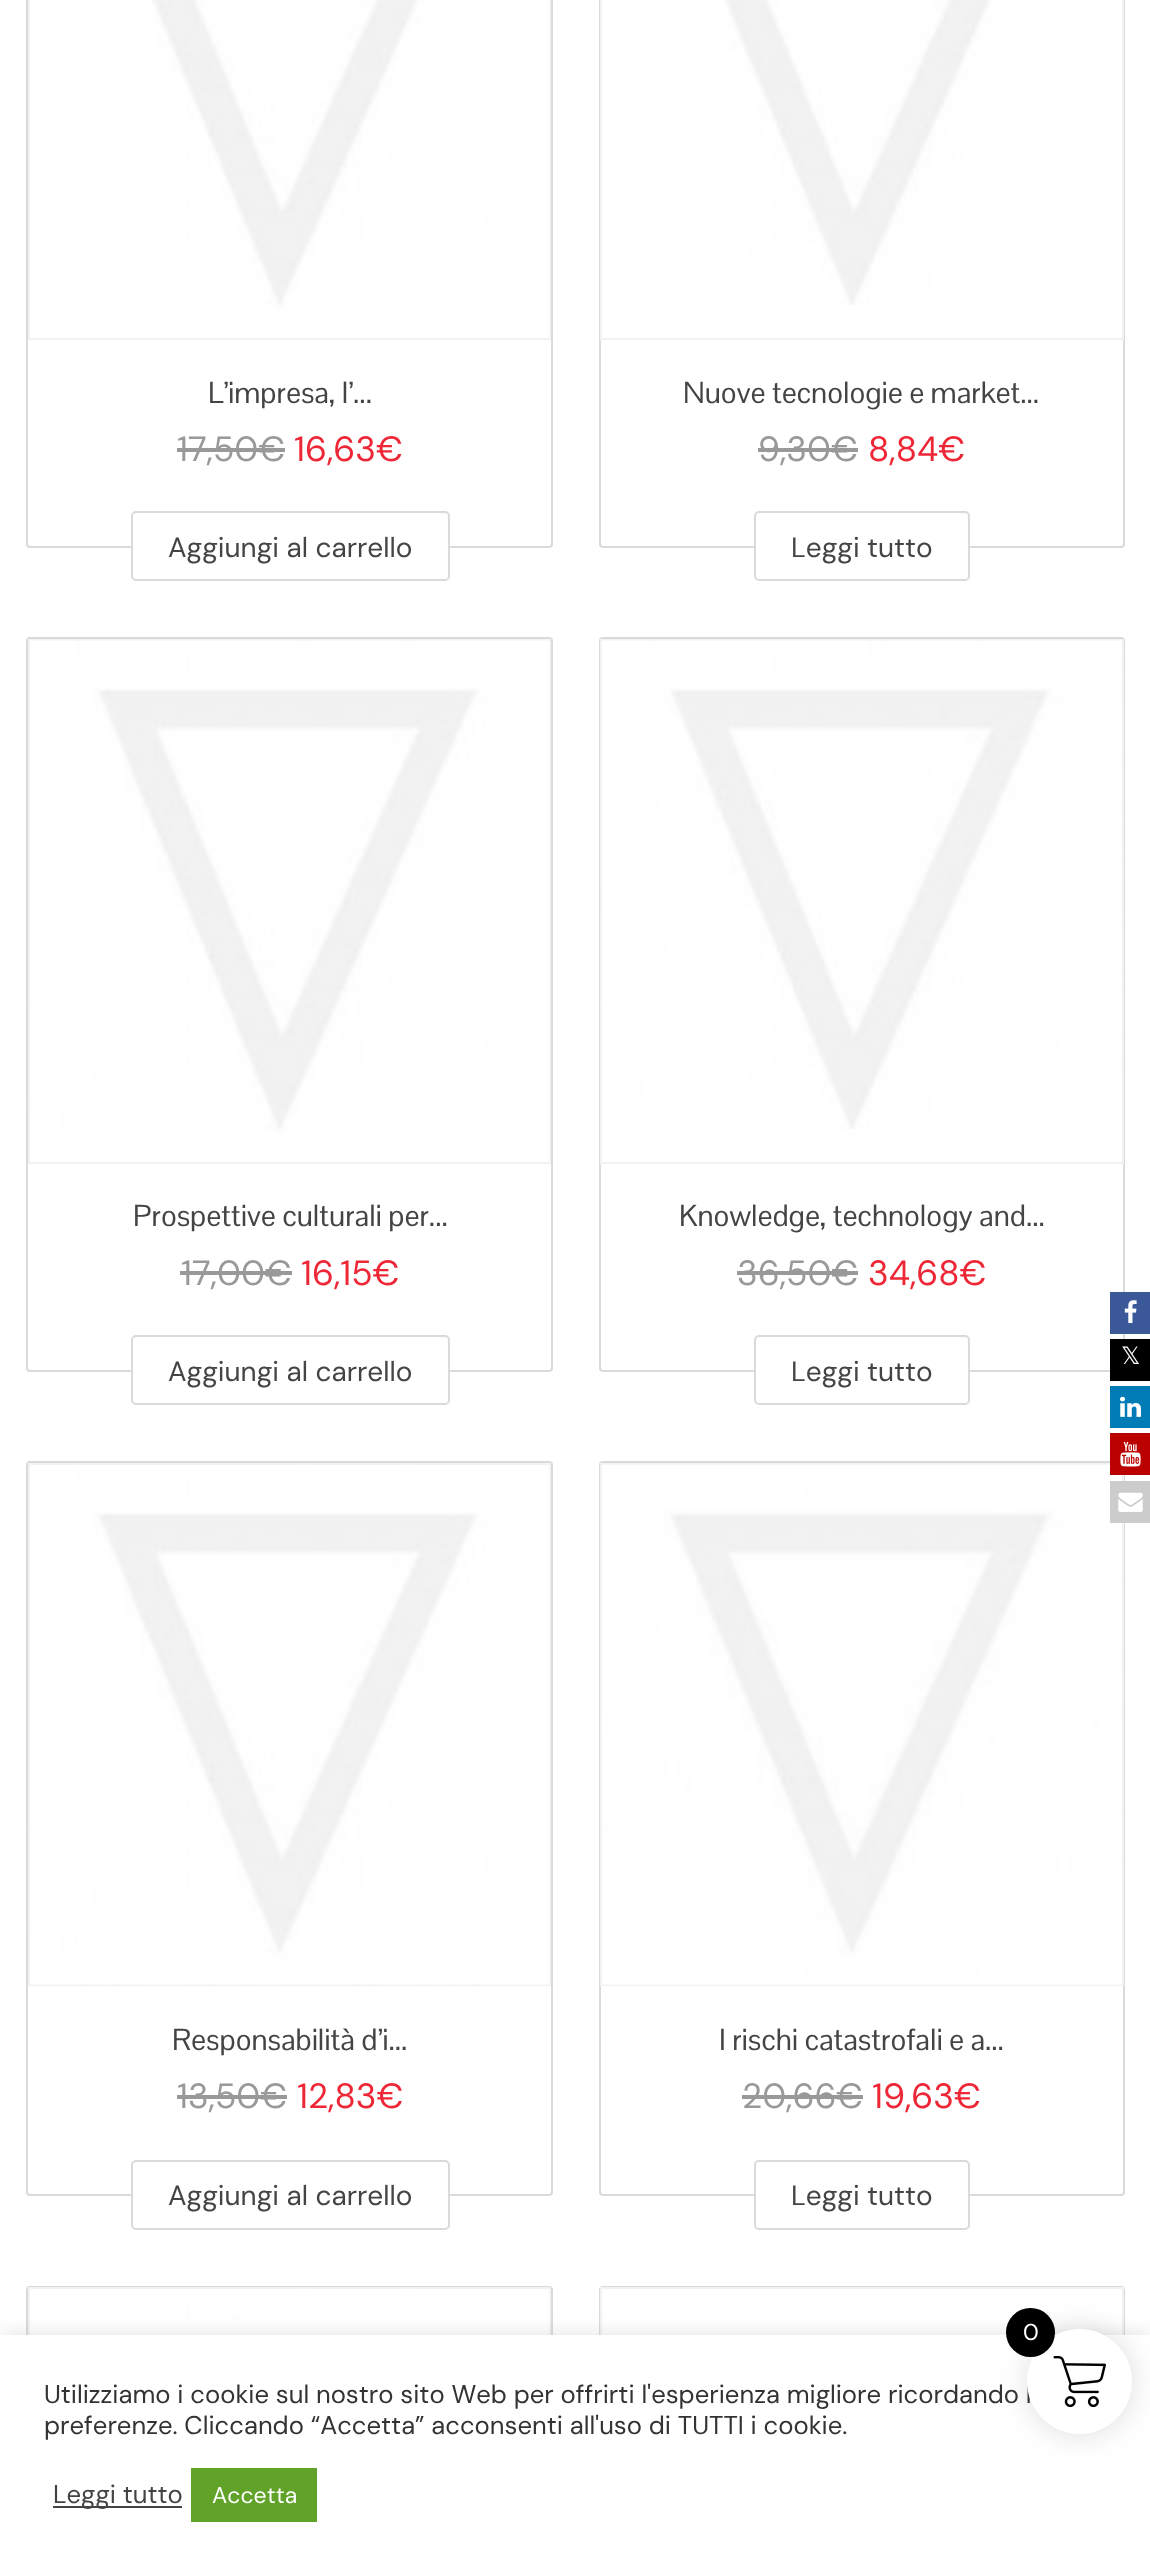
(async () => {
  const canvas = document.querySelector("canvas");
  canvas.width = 1150;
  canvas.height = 2573;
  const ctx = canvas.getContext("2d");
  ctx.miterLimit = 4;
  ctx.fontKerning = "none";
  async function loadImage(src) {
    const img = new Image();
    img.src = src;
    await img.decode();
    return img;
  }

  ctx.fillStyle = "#ffffff";
  ctx.fillRect(0, 0, 1150, 2573);
  ctx.beginPath();
  ctx.roundRect(27, -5, 525, 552, 3);
  ctx.strokeStyle = "#dadada";
  ctx.lineWidth = 2;
  ctx.stroke();
  ctx.strokeStyle = "#f2f2f2";
  ctx.strokeRect(29, -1, 521, 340);
  ctx.drawImage(await loadImage("img/1.png"), 152, 0, 398, 338);
  ctx.fillStyle = "#999999";
  ctx.fillRect(177, 448, 108, 4);
  ctx.fillStyle = "#ffffff";
  ctx.beginPath();
  ctx.roundRect(132, 512, 317, 68, 4);
  ctx.fill();
  ctx.strokeStyle = "#dadada";
  ctx.stroke();
  ctx.beginPath();
  ctx.roundRect(600, -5, 524, 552, 3);
  ctx.stroke();
  ctx.strokeStyle = "#f2f2f2";
  ctx.strokeRect(601, -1, 522, 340);
  ctx.drawImage(await loadImage("img/2.png"), 724, 0, 267, 305);
  ctx.fillStyle = "#999999";
  ctx.fillRect(758, 448, 100, 4);
  ctx.fillStyle = "#ffffff";
  ctx.beginPath();
  ctx.roundRect(755, 512, 214, 68, 4);
  ctx.fill();
  ctx.strokeStyle = "#dadada";
  ctx.stroke();
  ctx.beginPath();
  ctx.roundRect(27, 638, 525, 733, 3);
  ctx.stroke();
  ctx.strokeStyle = "#f2f2f2";
  ctx.strokeRect(29, 640, 521, 523);
  ctx.drawImage(await loadImage("img/3.png"), 30, 640, 520, 522);
  ctx.fillStyle = "#999999";
  ctx.fillRect(180, 1271, 112, 4);
  ctx.fillStyle = "#ffffff";
  ctx.beginPath();
  ctx.roundRect(132, 1336, 317, 68, 4);
  ctx.fill();
  ctx.strokeStyle = "#dadada";
  ctx.stroke();
  ctx.beginPath();
  ctx.roundRect(600, 638, 524, 733, 3);
  ctx.stroke();
  ctx.strokeStyle = "#f2f2f2";
  ctx.strokeRect(601, 640, 522, 523);
  ctx.drawImage(await loadImage("img/4.png"), 602, 640, 520, 490);
  ctx.fillStyle = "#999999";
  ctx.fillRect(737, 1271, 121, 4);
  ctx.fillStyle = "#ffffff";
  ctx.beginPath();
  ctx.roundRect(755, 1336, 214, 68, 4);
  ctx.fill();
  ctx.strokeStyle = "#dadada";
  ctx.stroke();
  ctx.beginPath();
  ctx.roundRect(27, 1462, 525, 733, 3);
  ctx.stroke();
  ctx.strokeStyle = "#f2f2f2";
  ctx.strokeRect(29, 1464, 521, 521);
  ctx.drawImage(await loadImage("img/5.png"), 30, 1465, 520, 520);
  ctx.fillStyle = "#999999";
  ctx.fillRect(177, 2095, 110, 4);
  ctx.fillStyle = "#ffffff";
  ctx.beginPath();
  ctx.roundRect(132, 2161, 317, 68, 4);
  ctx.fill();
  ctx.strokeStyle = "#dadada";
  ctx.stroke();
  ctx.beginPath();
  ctx.roundRect(600, 1462, 524, 733, 3);
  ctx.stroke();
  ctx.strokeStyle = "#f2f2f2";
  ctx.strokeRect(601, 1464, 522, 521);
  ctx.drawImage(await loadImage("img/6.png"), 602, 1464, 520, 521);
  ctx.fillStyle = "#999999";
  ctx.fillRect(742, 2095, 95, 4);
  ctx.fillRect(837, 2095, 26, 4);
  ctx.fillStyle = "#ffffff";
  ctx.beginPath();
  ctx.roundRect(755, 2161, 214, 68, 4);
  ctx.fill();
  ctx.strokeStyle = "#dadada";
  ctx.stroke();
  ctx.beginPath();
  ctx.roundRect(27, 2287, 525, 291, 3);
  ctx.stroke();
  ctx.strokeStyle = "#f2f2f2";
  ctx.strokeRect(29, 2288, 521, 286);
  ctx.drawImage(await loadImage("img/7.png"), 99, 2289, 451, 46);
  ctx.beginPath();
  ctx.roundRect(600, 2287, 524, 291, 3);
  ctx.strokeStyle = "#dadada";
  ctx.stroke();
  ctx.strokeStyle = "#f2f2f2";
  ctx.strokeRect(601, 2288, 522, 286);
  ctx.fillStyle = "#3b5998";
  ctx.fillRect(1110, 1292, 40, 42);
  ctx.drawImage(await loadImage("img/8.png"), 1124, 1300, 13, 23);
  ctx.fillStyle = "#000000";
  ctx.fillRect(1110, 1339, 40, 42);
  ctx.fillStyle = "#007bb6";
  ctx.fillRect(1110, 1386, 40, 42);
  ctx.drawImage(await loadImage("img/9.png"), 1120, 1396, 21, 21);
  ctx.fillStyle = "#bb0000";
  ctx.fillRect(1110, 1433, 40, 42);
  ctx.drawImage(await loadImage("img/10.png"), 1120, 1442, 21, 25);
  ctx.fillStyle = "#cccccc";
  ctx.fillRect(1110, 1481, 40, 42);
  ctx.drawImage(await loadImage("img/11.png"), 1118, 1492, 25, 20);
  ctx.fillStyle = "rgba(172, 171, 171, 0.3)";
  ctx.filter = "blur(9px)";
  ctx.beginPath();
  ctx.rect(0, 2333, 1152, 240);
  ctx.fill();
  ctx.filter = "none";
  ctx.fillStyle = "#ffffff";
  ctx.fillRect(0, 2335, 1150, 238);
  ctx.fillStyle = "rgba(0, 0, 0, 0.1)";
  ctx.filter = "blur(13px)";
  ctx.beginPath();
  ctx.roundRect(1024, 2326, 112, 112, 56);
  ctx.fill();
  ctx.filter = "none";
  ctx.fillStyle = "#444444";
  ctx.fillRect(53, 2506, 129, 2);
  ctx.fillStyle = "#61a229";
  ctx.fillRect(191, 2468, 126, 54);
  ctx.font = "29.75px Pontano Sans";
  ctx.fillStyle = "#444444";
  ctx.fillText("L’impresa, l’...", 208, 403);
  ctx.font = "35px DM Sans";
  ctx.fillStyle = "#999999";
  ctx.fillText("17,50€", 177, 461);
  ctx.fillStyle = "#ee2737";
  ctx.fillText("16,63€", 294, 461);
  ctx.font = "28px DM Sans";
  ctx.fillStyle = "#444444";
  ctx.fillText("Aggiungi al carrello", 168, 557);
  ctx.font = "29.75px Pontano Sans";
  ctx.fillText("Nuove tecnologie e market...", 683, 403);
  ctx.font = "35px DM Sans";
  ctx.fillStyle = "#999999";
  ctx.fillText("9,30€", 758, 461);
  ctx.fillStyle = "#ee2737";
  ctx.fillText("8,84€", 868, 461);
  ctx.font = "28px DM Sans";
  ctx.fillStyle = "#444444";
  ctx.fillText("Leggi tutto", 791, 557);
  ctx.font = "29.75px Pontano Sans";
  ctx.fillText("Prospettive culturali per...", 133, 1226);
  ctx.font = "35px DM Sans";
  ctx.fillStyle = "#999999";
  ctx.fillText("17,00€", 181, 1285);
  ctx.fillStyle = "#ee2737";
  ctx.fillText("16,15€", 301, 1285);
  ctx.font = "28px DM Sans";
  ctx.fillStyle = "#444444";
  ctx.fillText("Aggiungi al carrello", 168, 1381);
  ctx.font = "29.75px Pontano Sans";
  ctx.fillText("Knowledge, technology and...", 679, 1226);
  ctx.font = "35px DM Sans";
  ctx.fillStyle = "#999999";
  ctx.fillText("36,50€", 737, 1285);
  ctx.fillStyle = "#ee2737";
  ctx.fillText("34,68€", 868, 1285);
  ctx.font = "28px DM Sans";
  ctx.fillStyle = "#444444";
  ctx.fillText("Leggi tutto", 791, 1381);
  ctx.font = "29.75px Pontano Sans";
  ctx.fillText("Responsabilità d’i...", 172, 2050);
  ctx.font = "35px DM Sans";
  ctx.fillStyle = "#999999";
  ctx.fillText("13,50€", 177, 2108);
  ctx.fillStyle = "#ee2737";
  ctx.fillText("12,83€", 297, 2108);
  ctx.font = "28px DM Sans";
  ctx.fillStyle = "#444444";
  ctx.fillText("Aggiungi al carrello", 168, 2205);
  ctx.font = "29.75px Pontano Sans";
  ctx.fillText("I rischi catastrofali e a...", 719, 2050);
  ctx.font = "35px DM Sans";
  ctx.fillStyle = "#999999";
  ctx.fillText("20,66", 742, 2108);
  ctx.fillText("€", 836, 2108);
  ctx.fillStyle = "#ee2737";
  ctx.fillText("19,63€", 872, 2108);
  ctx.font = "28px DM Sans";
  ctx.fillStyle = "#444444";
  ctx.fillText("Leggi tutto", 791, 2205);
  ctx.font = "24px DejaVu Sans";
  ctx.fillStyle = "#ffffff";
  ctx.fillText("𝕏", 1121, 1364);
  ctx.font = "25.65px DM Sans";
  ctx.fillStyle = "#333333";
  ctx.fillText("Utilizziamo i cookie sul nostro sito Web per offrirti l'esperienza migliore ricordando l", 44, 2403);
  ctx.fillStyle = "#ffffff";
  ctx.beginPath();
  ctx.arc(1079.5, 2381.5, 52.5, 0, Math.PI * 2);
  ctx.fill();
  ctx.drawImage(await loadImage("img/12.png"), 1053, 2356, 53, 52);
  ctx.fillStyle = "#000000";
  ctx.beginPath();
  ctx.arc(1030.5, 2332.5, 24.5, 0, Math.PI * 2);
  ctx.fill();
  ctx.font = "23px DM Sans";
  ctx.fillStyle = "#ffffff";
  ctx.fillText("0", 1023, 2340);
  ctx.font = "25.65px DM Sans";
  ctx.fillStyle = "#333333";
  ctx.fillText("preferenze. Cliccando “Accetta” acconsenti all'uso di TUTTI i cookie.", 44, 2434);
  ctx.fillStyle = "#444444";
  ctx.fillText("Leggi tutto", 53, 2503);
  ctx.font = "23px DM Sans";
  ctx.fillStyle = "#ffffff";
  ctx.fillText("Accetta", 212, 2503);
})();
